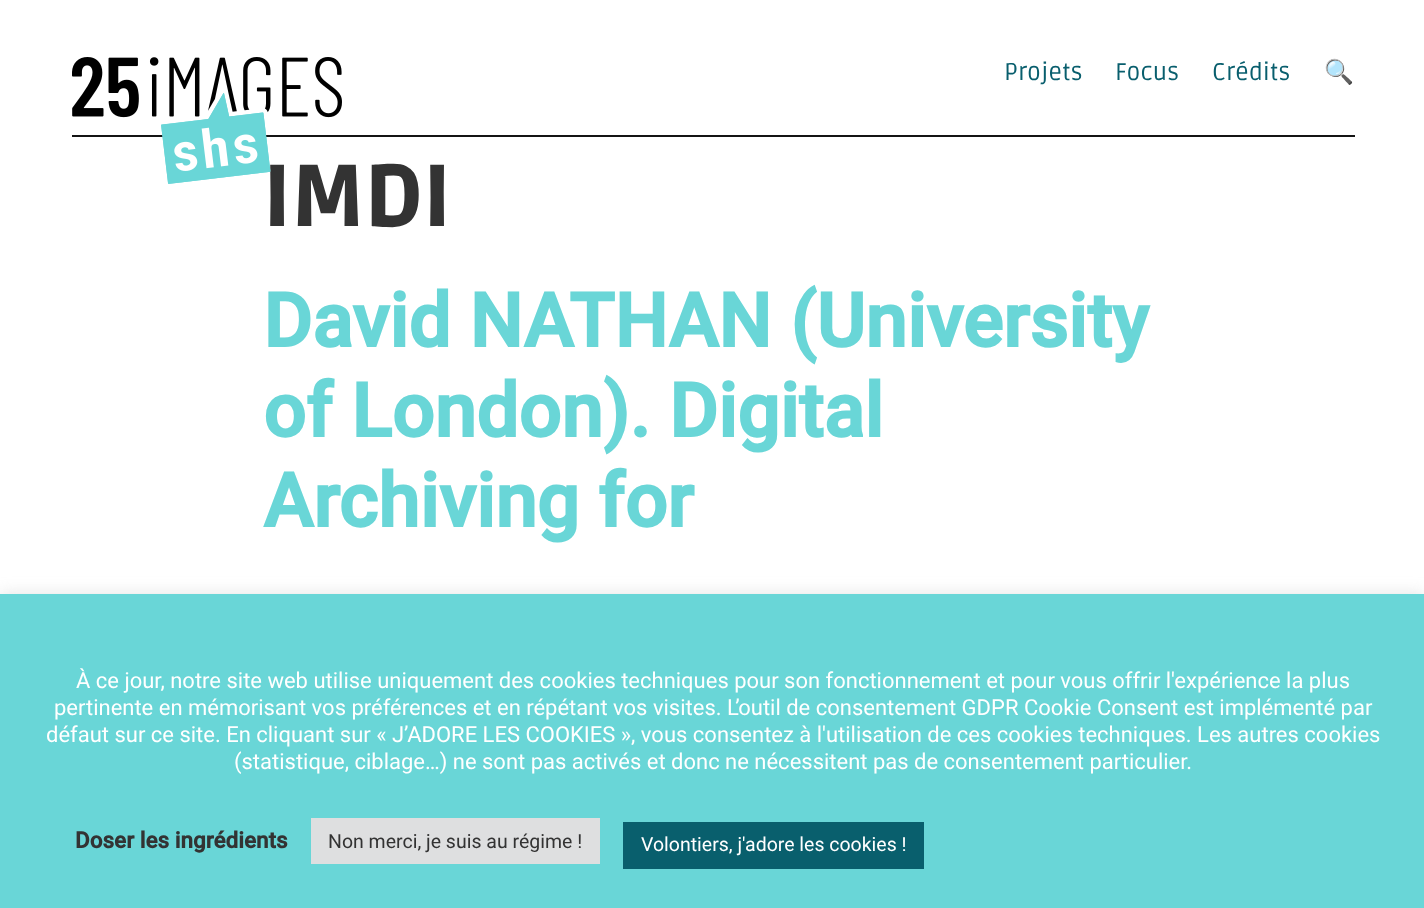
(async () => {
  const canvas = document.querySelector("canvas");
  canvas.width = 1424;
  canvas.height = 908;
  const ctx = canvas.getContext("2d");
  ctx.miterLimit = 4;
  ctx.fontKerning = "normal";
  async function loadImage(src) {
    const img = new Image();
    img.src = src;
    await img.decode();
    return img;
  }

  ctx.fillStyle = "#ffffff";
  ctx.fillRect(0, 0, 1424, 908);
  ctx.fillStyle = "#141414";
  ctx.fillRect(72, 135, 1283, 2);
  ctx.fillStyle = "rgba(172, 171, 171, 0.3)";
  ctx.filter = "blur(7.5px)";
  ctx.beginPath();
  ctx.rect(0, 593, 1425, 315);
  ctx.fill();
  ctx.filter = "none";
  for (const [x, y, w, h, color] of [
    [0, 594, 1424, 314, "#69d6d7"],
    [311, 818, 289, 46, "#dedfe0"],
    [623, 822, 301, 47, "#095f6d"],
  ]) {
    ctx.fillStyle = color;
    ctx.fillRect(x, y, w, h);
  }
  ctx.font = "24px Ruda";
  ctx.fillStyle = "#085e6d";
  for (const [text, x, y] of [
    ["Projets", 1004, 80],
    ["Focus", 1115, 80],
    ["Crédits", 1212, 80],
  ]) {
    ctx.fillText(text, x, y);
  }
  ctx.font = "24px Noto Color Emoji";
  ctx.fillText("🔍", 1324, 80);
  ctx.font = "900 87px Ruda";
  ctx.fillStyle = "#333333";
  ctx.fillText("IMDI", 263, 226);
  ctx.drawImage(await loadImage("img/1.png"), 72, 57, 270, 127);
  ctx.font = "bold 75px Roboto";
  ctx.fillStyle = "#69d6d7";
  for (const [text, x, y] of [
    ["David NATHAN (University", 263, 347],
    ["of London). Digital", 263, 437],
    ["Archiving for", 263, 527],
  ]) {
    ctx.fillText(text, x, y);
  }
  ctx.font = "22px Roboto";
  ctx.fillStyle = "#ffffff";
  for (const [text, x, y] of [
    ["À ce jour, notre site web utilise uniquement des cookies techniques pour son fonctionnement et pour vous offrir l'expérience la plus", 76, 688],
    ["pertinente en mémorisant vos préférences et en répétant vos visites. L’outil de consentement GDPR Cookie Consent est implémenté par", 54, 715],
    ["défaut sur ce site. En cliquant sur « J’ADORE LES COOKIES », vous consentez à l'utilisation de ces cookies techniques. Les autres cookies", 46, 742],
    ["(statistique, ciblage…) ne sont pas activés et donc ne nécessitent pas de consentement particulier.", 234, 769],
  ]) {
    ctx.fillText(text, x, y);
  }
  ctx.font = "bold 22.5px Roboto";
  ctx.fillStyle = "#333333";
  ctx.fillText("Doser les ingrédients", 75, 848);
  ctx.font = "19.5px Roboto";
  ctx.fillText("Non merci, je suis au régime !", 328, 848);
  ctx.fillStyle = "#ffffff";
  ctx.fillText("Volontiers, j'adore les cookies !", 641, 851);
})();
